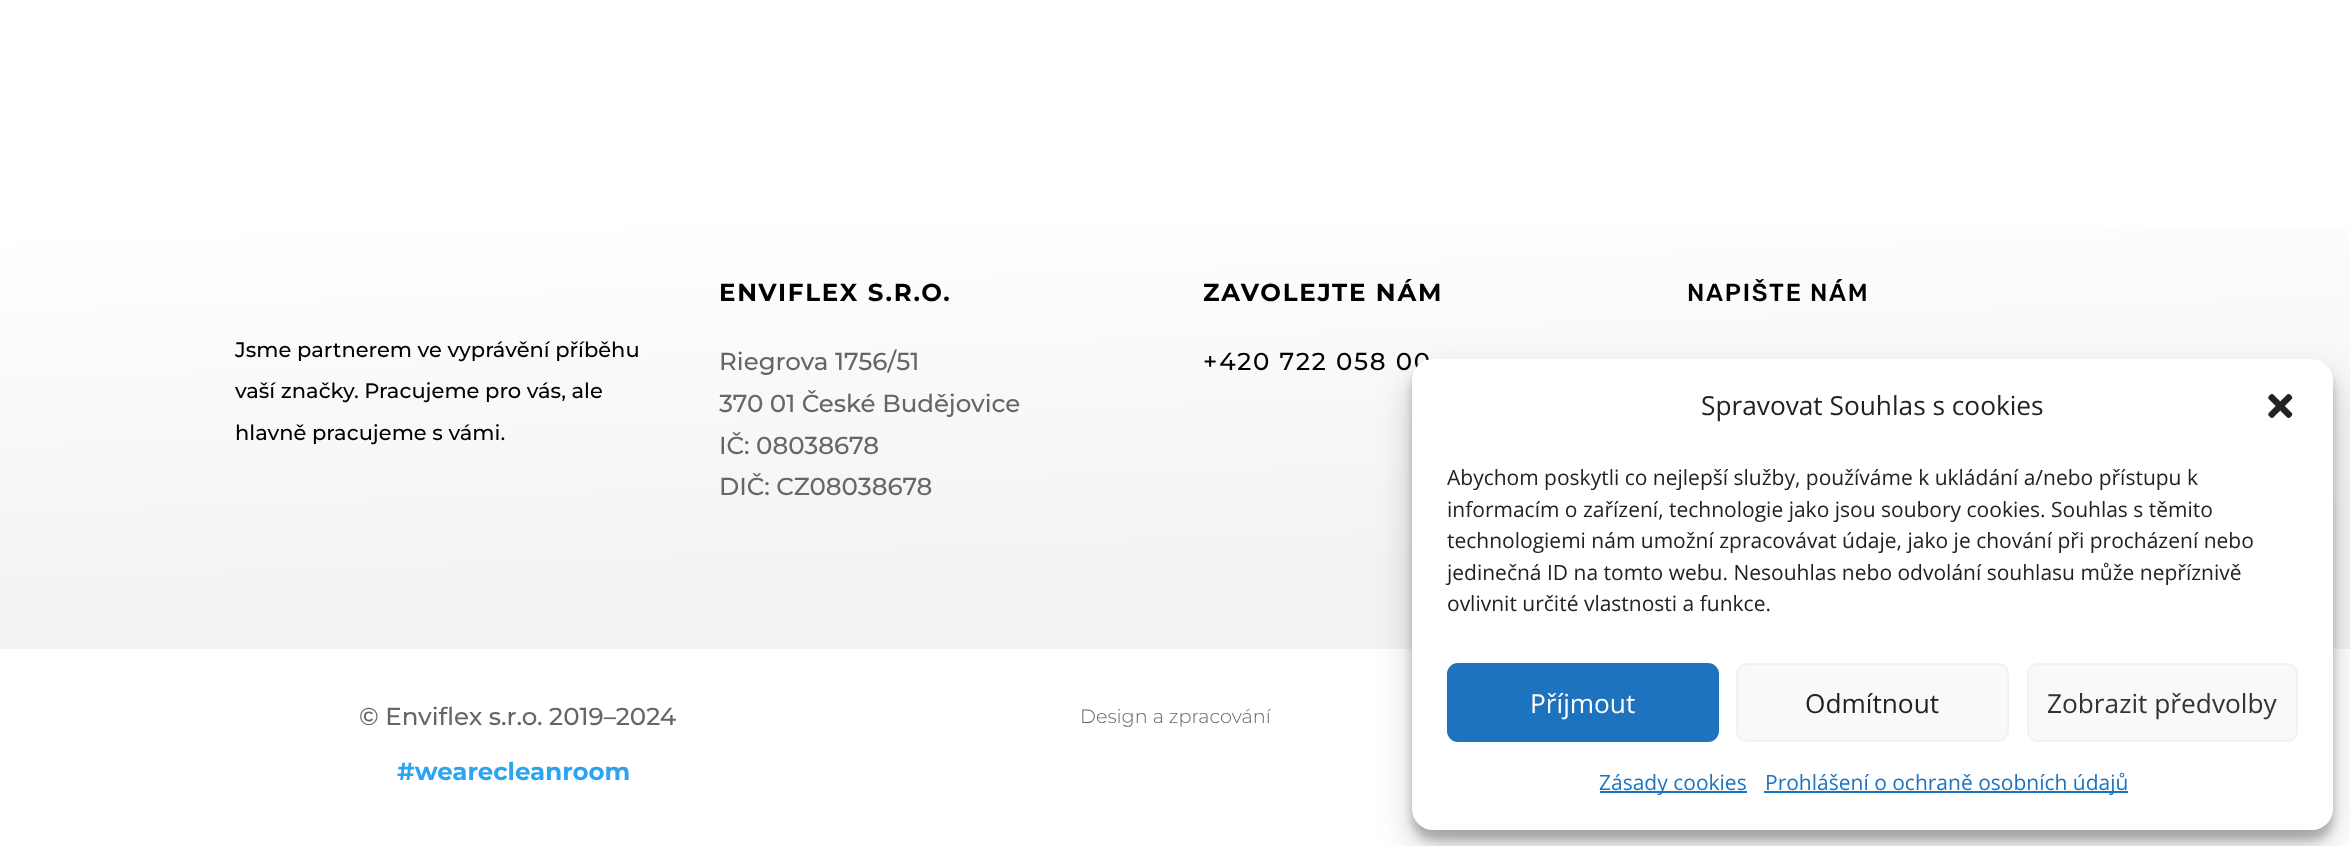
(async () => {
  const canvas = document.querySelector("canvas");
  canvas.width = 2350;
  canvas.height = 846;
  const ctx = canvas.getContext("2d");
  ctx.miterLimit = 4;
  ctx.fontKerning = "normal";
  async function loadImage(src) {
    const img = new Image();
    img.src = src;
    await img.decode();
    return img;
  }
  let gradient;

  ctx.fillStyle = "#ffffff";
  ctx.fillRect(0, 0, 2350, 846);
  gradient = ctx.createLinearGradient(1166, 185, 1184, 690);
  gradient.addColorStop(0, "#ffffff");
  gradient.addColorStop(0.81, "#f2f2f2");
  ctx.fillStyle = gradient;
  ctx.fillRect(0, 226, 2350, 423);
  ctx.fillStyle = "rgba(0, 0, 0, 0.23)";
  ctx.filter = "blur(5px)";
  ctx.beginPath();
  ctx.roundRect(1412, 369, 921, 471, 21);
  ctx.fill();
  ctx.filter = "none";
  ctx.fillStyle = "rgba(0, 0, 0, 0.19)";
  ctx.filter = "blur(17.5px)";
  ctx.beginPath();
  ctx.roundRect(1412, 376, 921, 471, 21);
  ctx.fill();
  ctx.filter = "none";
  ctx.font = "100 21px Montserrat";
  ctx.fillStyle = "#000000";
  for (const [text, x, y] of [
    ["Jsme partnerem ve vyprávění příběhu", 235, 357],
    ["vaší značky. Pracujeme pro vás, ale", 235, 398],
    ["hlavně pracujeme s vámi.", 235, 440],
  ]) {
    ctx.fillText(text, x, y);
  }
  ctx.letterSpacing = "1.75px";
  ctx.font = "100 24.5px 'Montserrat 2'";
  ctx.fillText("ENVIFLEX S.R.O.", 719, 301);
  ctx.letterSpacing = "0px";
  ctx.font = "100 24.5px Montserrat";
  ctx.fillStyle = "#666666";
  for (const [text, x, y] of [
    ["Riegrova 1756/51", 719, 370],
    ["370 01 České Budějovice", 719, 412],
    ["IČ: 08038678", 719, 454],
    ["DIČ: CZ08038678", 719, 495],
  ]) {
    ctx.fillText(text, x, y);
  }
  ctx.letterSpacing = "1.75px";
  ctx.font = "100 24.5px 'Montserrat 2'";
  ctx.fillStyle = "#000000";
  ctx.fillText("ZAVOLEJTE NÁM", 1203, 301);
  ctx.font = "100 24.5px Montserrat";
  ctx.fillText("+420 722 058 00", 1203, 370);
  ctx.font = "300 24.5px Rubik";
  ctx.fillText("NAPIŠTE NÁM", 1687, 301);
  ctx.letterSpacing = "0px";
  ctx.font = "100 24.5px Montserrat";
  ctx.fillStyle = "#666666";
  ctx.fillText("© Enviflex s.r.o. 2019–2024", 359, 725);
  ctx.font = "100 24.5px 'Montserrat 2'";
  ctx.fillStyle = "#2ea3f2";
  ctx.fillText("#wearecleanroom", 397, 780);
  ctx.font = "100 19.25px 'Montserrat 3'";
  ctx.fillStyle = "#666666";
  ctx.fillText("Design a zpracování", 1080, 723);
  ctx.fillStyle = "#ffffff";
  ctx.beginPath();
  ctx.roundRect(1412, 359, 921, 471, 21);
  ctx.fill();
  ctx.font = "26.25px Open Sans";
  ctx.fillStyle = "#222222";
  ctx.fillText("Spravovat Souhlas s cookies", 1701, 415);
  ctx.drawImage(await loadImage("img/1.png"), 2268, 394, 25, 24);
  ctx.font = "21px Open Sans";
  for (const [text, x, y] of [
    ["Abychom poskytli co nejlepší služby, používáme k ukládání a/nebo přístupu k", 1447, 485],
    ["informacím o zařízení, technologie jako jsou soubory cookies. Souhlas s těmito", 1447, 517],
    ["technologiemi nám umožní zpracovávat údaje, jako je chování při procházení nebo", 1447, 548],
    ["jedinečná ID na tomto webu. Nesouhlas nebo odvolání souhlasu může nepříznivě", 1447, 580],
    ["ovlivnit určité vlastnosti a funkce.", 1447, 611],
  ]) {
    ctx.fillText(text, x, y);
  }
  ctx.fillStyle = "#1e73be";
  ctx.beginPath();
  ctx.roundRect(1448, 664, 270, 77, 10);
  ctx.fill();
  ctx.strokeStyle = "#1e73be";
  ctx.lineWidth = 2;
  ctx.stroke();
  ctx.font = "26.25px Open Sans";
  ctx.fillStyle = "#ffffff";
  ctx.fillText("Příjmout", 1530, 713);
  ctx.fillStyle = "#f9f9f9";
  ctx.beginPath();
  ctx.roundRect(1737, 664, 271, 77, 10);
  ctx.fill();
  ctx.strokeStyle = "#f2f2f2";
  ctx.stroke();
  ctx.fillStyle = "#222222";
  ctx.fillText("Odmítnout", 1805, 713);
  ctx.fillStyle = "#f9f9f9";
  ctx.beginPath();
  ctx.roundRect(2028, 664, 269, 77, 10);
  ctx.fill();
  ctx.stroke();
  ctx.fillStyle = "#333333";
  ctx.fillText("Zobrazit předvolby", 2047, 713);
  ctx.fillStyle = "#1e73be";
  ctx.fillRect(1600, 791, 147, 2);
  ctx.font = "21px Open Sans";
  ctx.fillText("Zásady cookies", 1599, 790);
  ctx.fillRect(1764, 791, 364, 2);
  ctx.fillText("Prohlášení o ochraně osobních údajů", 1765, 790);
})();
